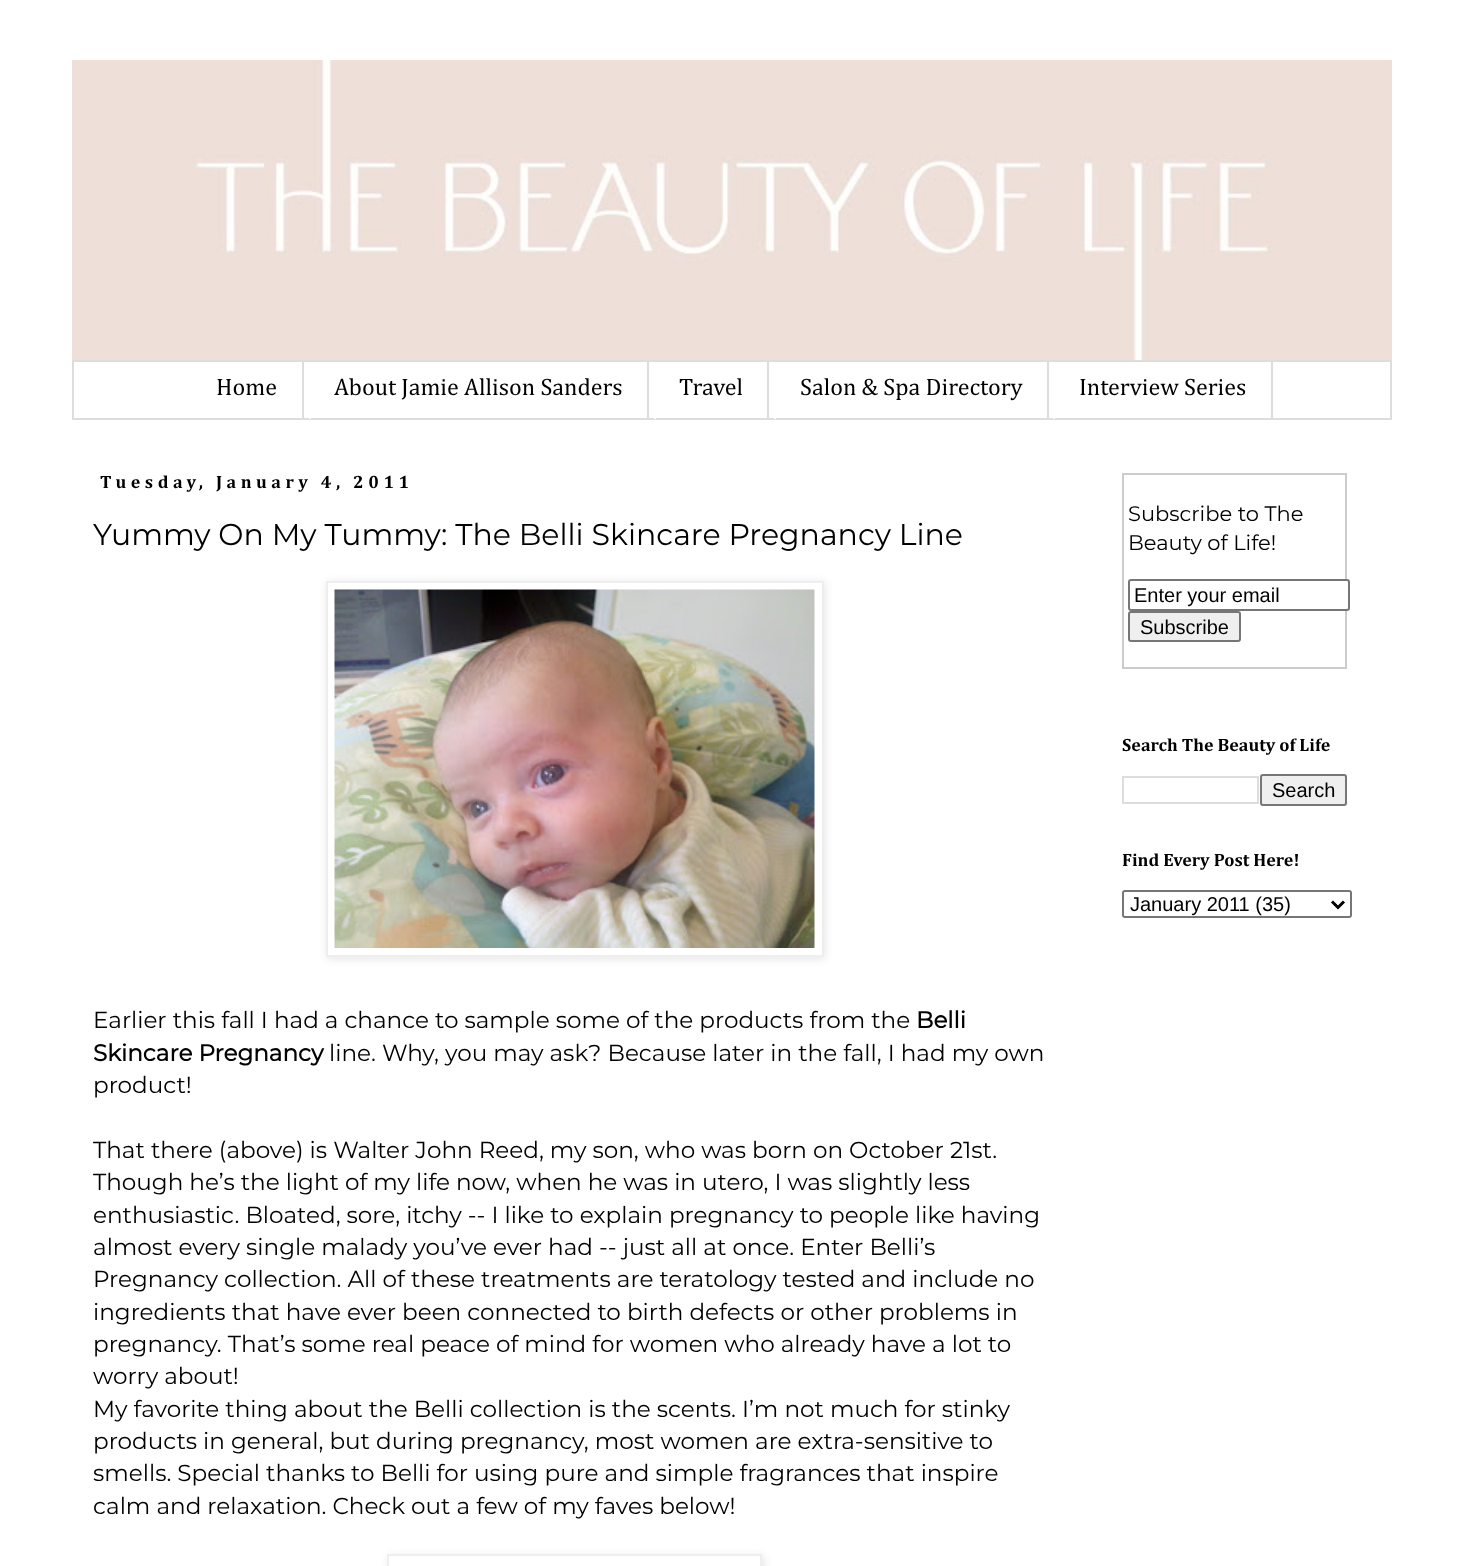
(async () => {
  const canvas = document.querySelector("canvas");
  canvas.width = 1464;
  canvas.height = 1566;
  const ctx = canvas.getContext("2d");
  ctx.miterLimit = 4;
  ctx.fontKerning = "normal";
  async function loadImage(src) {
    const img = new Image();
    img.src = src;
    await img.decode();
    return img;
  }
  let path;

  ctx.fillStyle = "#ffffff";
  ctx.fillRect(0, 0, 1464, 1566);
  ctx.drawImage(await loadImage("img/1.png"), 72, 60, 1320, 300);
  ctx.strokeStyle = "#dddddd";
  ctx.lineWidth = 2;
  ctx.strokeRect(73, 361, 1318, 58);
  for (const [x, y, w, h, color] of [
    [302, 362, 2, 57, "#dddddd"],
    [647, 362, 2, 57, "#dddddd"],
    [309, 418, 2, 1, "#ffffff"],
    [767, 362, 2, 57, "#dddddd"],
    [654, 418, 2, 1, "#ffffff"],
    [1047, 362, 2, 57, "#dddddd"],
    [774, 418, 2, 1, "#ffffff"],
    [1271, 362, 2, 57, "#dddddd"],
    [1053, 418, 2, 1, "#ffffff"],
  ]) {
    ctx.fillStyle = color;
    ctx.fillRect(x, y, w, h);
  }
  ctx.fillStyle = "rgba(0, 0, 0, 0.1)";
  ctx.filter = "blur(4px)";
  ctx.beginPath();
  ctx.rect(327, 582, 498, 377);
  ctx.fill();
  ctx.filter = "none";
  ctx.fillStyle = "#ffffff";
  ctx.beginPath();
  ctx.rect(327, 582, 496, 374);
  ctx.fill();
  ctx.strokeStyle = "#eeeeee";
  ctx.stroke();
  ctx.drawImage(await loadImage("img/2.png"), 334, 589, 481, 359);
  ctx.save();
  path = new Path2D("M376 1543H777V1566H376ZM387 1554H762V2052H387Z");
  ctx.clip(path, "evenodd");
  ctx.fillStyle = "rgba(0, 0, 0, 0.1)";
  ctx.filter = "blur(4px)";
  ctx.beginPath();
  ctx.rect(389, 1556, 375, 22);
  ctx.fill();
  ctx.filter = "none";
  ctx.restore();
  ctx.strokeRect(388, 1555, 373, 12);
  ctx.strokeStyle = "#cccccc";
  ctx.strokeRect(1123, 474, 223, 194);
  ctx.beginPath();
  ctx.roundRect(1129, 580, 220, 30, 2);
  ctx.fill();
  ctx.strokeStyle = "#767676";
  ctx.stroke();
  ctx.fillStyle = "#efefef";
  ctx.beginPath();
  ctx.roundRect(1129, 612, 111, 29, 2);
  ctx.fill();
  ctx.stroke();
  ctx.strokeStyle = "#dddddd";
  ctx.strokeRect(1123, 777, 135, 26);
  ctx.beginPath();
  ctx.roundRect(1261, 775, 85, 30, 2);
  ctx.fill();
  ctx.strokeStyle = "#767676";
  ctx.stroke();
  ctx.beginPath();
  ctx.roundRect(1123, 891, 228, 26, 2);
  ctx.stroke();
  path = new Path2D("M1332 901.5L1338 907.5L1344 901.5");
  ctx.strokeStyle = "#000000";
  ctx.lineWidth = 3;
  ctx.stroke(path);
  ctx.font = "24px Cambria";
  ctx.fillStyle = "#000000";
  for (const [text, x, y] of [
    ["Home", 216, 395],
    ["About Jamie Allison Sanders", 334, 395],
    ["Travel", 679, 395],
    ["Salon & Spa Directory", 800, 395],
    ["Interview Series", 1079, 395],
  ]) {
    ctx.fillText(text, x, y);
  }
  ctx.letterSpacing = "4.5px";
  ctx.font = "bold 18px Cambria";
  ctx.fillText("Tuesday, January 4, 2011", 100, 488);
  ctx.letterSpacing = "0px";
  ctx.font = "100 30px Montserrat";
  ctx.fillText("Yummy On My Tummy: The Belli Skincare Pregnancy Line", 93, 545);
  ctx.font = "100 23.1px Montserrat";
  ctx.fillText("Earlier this fall I had a chance to sample some of the products from the", 93, 1028);
  ctx.font = "bold 23.1px Montserrat";
  ctx.fillText("Belli", 916, 1028);
  ctx.fillText("Skincare Pregnancy", 93, 1061);
  ctx.font = "100 23.1px Montserrat";
  for (const [text, x, y] of [
    ["line. Why, you may ask? Because later in the fall, I had my own", 329, 1061],
    ["product!", 93, 1093],
    ["That there (above) is Walter John Reed, my son, who was born on October 21st.", 93, 1158],
    ["Though he’s the light of my life now, when he was in utero, I was slightly less", 93, 1190],
    ["enthusiastic. Bloated, sore, itchy -- I like to explain pregnancy to people like having", 93, 1223],
    ["almost every single malady you’ve ever had -- just all at once. Enter Belli’s", 93, 1255],
    ["Pregnancy collection. All of these treatments are teratology tested and include no", 93, 1287],
    ["ingredients that have ever been connected to birth defects or other problems in", 93, 1320],
    ["pregnancy. That’s some real peace of mind for women who already have a lot to", 93, 1352],
    ["worry about!", 93, 1384],
    ["My favorite thing about the Belli collection is the scents. I’m not much for stinky", 93, 1417],
    ["products in general, but during pregnancy, most women are extra-sensitive to", 93, 1449],
    ["smells. Special thanks to Belli for using pure and simple fragrances that inspire", 93, 1481],
    ["calm and relaxation. Check out a few of my faves below!", 93, 1514],
  ]) {
    ctx.fillText(text, x, y);
  }
  ctx.font = "100 21px Montserrat";
  ctx.fillText("Subscribe to The", 1128, 521);
  ctx.fillText("Beauty of Life!", 1128, 550);
  ctx.font = "20px Liberation Sans";
  ctx.fillText("Enter your email", 1134, 602);
  ctx.fillText("Subscribe", 1140, 634);
  ctx.font = "bold 18px Cambria";
  ctx.fillText("Search The Beauty of Life", 1122, 751);
  ctx.font = "20px Liberation Sans";
  ctx.fillText("Search", 1272, 797);
  ctx.font = "bold 18px Cambria";
  ctx.fillText("Find Every Post Here!", 1122, 866);
  ctx.font = "20px Liberation Sans";
  ctx.fillText("January 2011 (35)", 1130, 911);
})();
